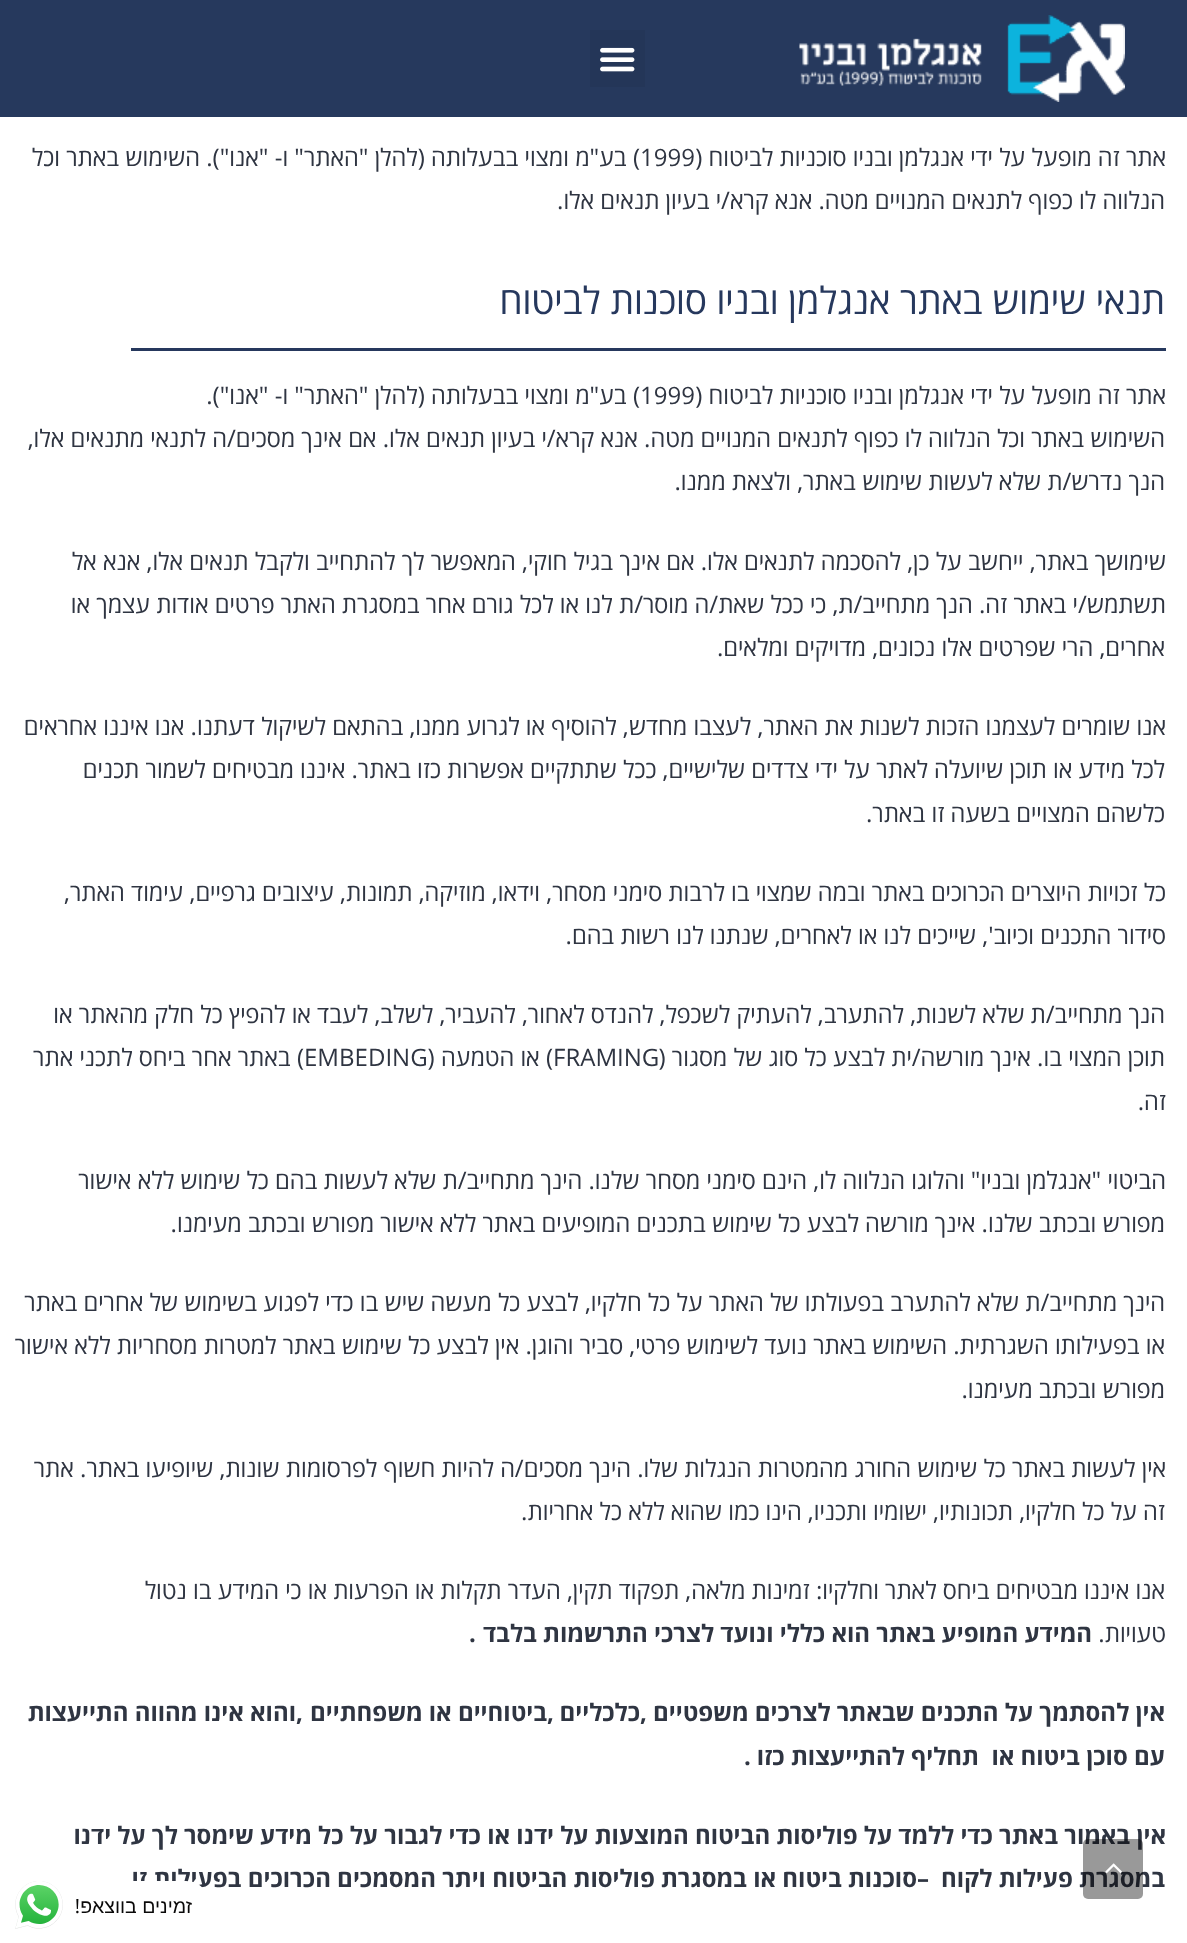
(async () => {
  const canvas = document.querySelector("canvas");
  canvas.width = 1187;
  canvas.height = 1943;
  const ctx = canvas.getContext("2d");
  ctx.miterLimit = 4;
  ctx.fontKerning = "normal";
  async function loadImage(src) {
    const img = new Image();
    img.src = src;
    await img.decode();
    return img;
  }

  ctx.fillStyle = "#ffffff";
  ctx.fillRect(0, 0, 1187, 1943);
  ctx.fillStyle = "#26395d";
  ctx.fillRect(0, 0, 1187, 117);
  ctx.drawImage(await loadImage("img/1.png"), 799, 15, 326, 87);
  ctx.fillStyle = "#243658";
  ctx.fillRect(590, 30, 55, 57);
  ctx.drawImage(await loadImage("img/2.png"), 600, 47, 35, 25);
  ctx.fillStyle = "#26385d";
  ctx.fillRect(131, 348, 1035, 3);
  ctx.direction = "rtl";
  ctx.font = "24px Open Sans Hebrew";
  ctx.fillStyle = "#2f3542";
  ctx.fillText("אתר זה מופעל על ידי אנגלמן ובניו סוכניות לביטוח (", 1166, 166);
  ctx.direction = "ltr";
  ctx.fillText("1999", 640, 166);
  ctx.direction = "rtl";
  ctx.fillText(") בע\"מ ומצוי בבעלותה (להלן \"האתר\" ו- \"אנו\"). השימוש באתר וכל", 640, 166);
  ctx.fillText("הנלווה לו כפוף לתנאים המנויים מטה. אנא קרא/י בעיון תנאים אלו.", 1165, 209);
  ctx.font = "37.5px Open Sans Hebrew";
  ctx.fillStyle = "#26385d";
  ctx.fillText("תנאי שימוש באתר אנגלמן ובניו סוכנות לביטוח", 1165, 314);
  ctx.font = "24px Open Sans Hebrew";
  ctx.fillStyle = "#2f3542";
  ctx.fillText("אתר זה מופעל על ידי אנגלמן ובניו סוכניות לביטוח (", 1166, 404);
  ctx.direction = "ltr";
  ctx.fillText("1999", 640, 404);
  ctx.direction = "rtl";
  for (const [text, x, y] of [
    [") בע\"מ ומצוי בבעלותה (להלן \"האתר\" ו- \"אנו\").", 640, 404],
    ["השימוש באתר וכל הנלווה לו כפוף לתנאים המנויים מטה. אנא קרא/י בעיון תנאים אלו. אם אינך מסכים/ה לתנאי מתנאים אלו,", 1165, 447],
    ["הנך נדרש/ת שלא לעשות שימוש באתר, ולצאת ממנו.", 1165, 490],
    ["שימושך באתר, ייחשב על כן, להסכמה לתנאים אלו. אם אינך בגיל חוקי, המאפשר לך להתחייב ולקבל תנאים אלו, אנא אל", 1166, 570],
    ["תשתמש/י באתר זה. הנך מתחייב/ת, כי ככל שאת/ה מוסר/ת לנו או לכל גורם אחר במסגרת האתר פרטים אודות עצמך או", 1166, 613],
    ["אחרים, הרי שפרטים אלו נכונים, מדויקים ומלאים.", 1165, 656],
    ["אנו שומרים לעצמנו הזכות לשנות את האתר, לעצבו מחדש, להוסיף או לגרוע ממנו, בהתאם לשיקול דעתנו. אנו איננו אחראים", 1166, 735],
    ["לכל מידע או תוכן שיועלה לאתר על ידי צדדים שלישיים, ככל שתתקיים אפשרות כזו באתר. איננו מבטיחים לשמור תכנים", 1165, 778],
    ["כלשהם המצויים בשעה זו באתר.", 1165, 822],
    ["כל זכויות היוצרים הכרוכים באתר ובמה שמצוי בו לרבות סימני מסחר, וידאו, מוזיקה, תמונות, עיצובים גרפיים, עימוד האתר,", 1166, 901],
    ["סידור התכנים וכיוב', שייכים לנו או לאחרים, שנתנו לנו רשות בהם.", 1166, 944],
    ["הנך מתחייב/ת שלא לשנות, להתערב, להעתיק לשכפל, להנדס לאחור, להעביר, לשלב, לעבד או להפיץ כל חלק מהאתר או", 1165, 1023],
    ["תוכן המצוי בו. אינך מורשה/ית לבצע כל סוג של מסגור (", 1165, 1066],
  ]) {
    ctx.fillText(text, x, y);
  }
  ctx.direction = "ltr";
  ctx.fillText("FRAMING", 553, 1066);
  ctx.direction = "rtl";
  ctx.fillText(") או הטמעה (", 553, 1066);
  ctx.direction = "ltr";
  ctx.fillText("EMBEDING", 304, 1066);
  ctx.direction = "rtl";
  for (const [text, x, y] of [
    [") באתר אחר ביחס לתכני אתר", 304, 1066],
    ["זה.", 1166, 1110],
    ["הביטוי \"אנגלמן ובניו\" והלוגו הנלווה לו, הינם סימני מסחר שלנו. הינך מתחייב/ת שלא לעשות בהם כל שימוש ללא אישור", 1166, 1189],
    ["מפורש ובכתב שלנו. אינך מורשה לבצע כל שימוש בתכנים המופיעים באתר ללא אישור מפורש ובכתב מעימנו.", 1165, 1232],
    ["הינך מתחייב/ת שלא להתערב בפעולתו של האתר על כל חלקיו, לבצע כל מעשה שיש בו כדי לפגוע בשימוש של אחרים באתר", 1165, 1311],
    ["או בפעילותו השגרתית. השימוש באתר נועד לשימוש פרטי, סביר והוגן. אין לבצע כל שימוש באתר למטרות מסחריות ללא אישור", 1165, 1354],
    ["מפורש ובכתב מעימנו.", 1165, 1398],
    ["אין לעשות באתר כל שימוש החורג מהמטרות הנגלות שלו. הינך מסכים/ה להיות חשוף לפרסומות שונות, שיופיעו באתר. אתר", 1166, 1477],
    ["זה על כל חלקיו, תכונותיו, ישומיו ותכניו, הינו כמו שהוא ללא כל אחריות.", 1165, 1520],
    ["אנו איננו מבטיחים ביחס לאתר וחלקיו: זמינות מלאה, תפקוד תקין, העדר תקלות או הפרעות או כי המידע בו נטול", 1165, 1599],
    ["טעויות.", 1166, 1642],
  ]) {
    ctx.fillText(text, x, y);
  }
  ctx.font = "bold 24px Open Sans Hebrew";
  ctx.fillText("המידע המופיע באתר הוא כללי ונועד לצרכי התרשמות בלבד", 1092, 1642);
  ctx.direction = "ltr";
  ctx.fillText(".", 469, 1642);
  ctx.direction = "rtl";
  ctx.fillText("אין להסתמך על התכנים שבאתר לצרכים משפטיים", 1165, 1721);
  ctx.direction = "ltr";
  ctx.fillText(",", 640, 1721);
  ctx.direction = "rtl";
  ctx.fillText("כלכליים", 640, 1721);
  ctx.direction = "ltr";
  ctx.fillText(",", 547, 1721);
  ctx.direction = "rtl";
  ctx.fillText("ביטוחיים או משפחתיים", 547, 1721);
  ctx.direction = "ltr";
  ctx.fillText(",", 296, 1721);
  ctx.direction = "rtl";
  ctx.fillText("והוא אינו מהווה התייעצות", 296, 1721);
  ctx.fillText("עם סוכן ביטוח או  תחליף להתייעצות כזו", 1165, 1765);
  ctx.direction = "ltr";
  ctx.fillText(".", 744, 1765);
  ctx.direction = "rtl";
  ctx.fillText("אין באמור באתר כדי ללמד על פוליסות הביטוח המוצעות על ידנו או כדי לגבור על כל מידע שימסר לך על ידנו", 1166, 1844);
  ctx.fillText("במסגרת פעילות לקוח", 1165, 1887);
  ctx.direction = "ltr";
  ctx.fillText("–", 917, 1887);
  ctx.direction = "rtl";
  ctx.fillText("סוכנות ביטוח או במסגרת פוליסות הביטוח ויתר המסמכים הכרוכים בפעילות זו", 917, 1887);
  ctx.fillStyle = "rgba(0, 0, 0, 0.4)";
  ctx.beginPath();
  ctx.roundRect(1083, 1839, 60, 60, 5);
  ctx.fill();
  ctx.drawImage(await loadImage("img/3.png"), 1105, 1863, 17, 11);
  ctx.fillStyle = "#ffffff";
  ctx.beginPath();
  ctx.roundRect(15, 1881, 195, 48, 24);
  ctx.fill();
  ctx.font = "19.5px Liberation Sans";
  ctx.fillStyle = "#0a0909";
  ctx.fillText("זמינים בווצאפ", 192, 1913);
  ctx.font = "19.5px Noto Sans";
  ctx.fillText("!", 80, 1913);
  ctx.drawImage(await loadImage("img/4.png"), 15, 1881, 48, 48);
})();
